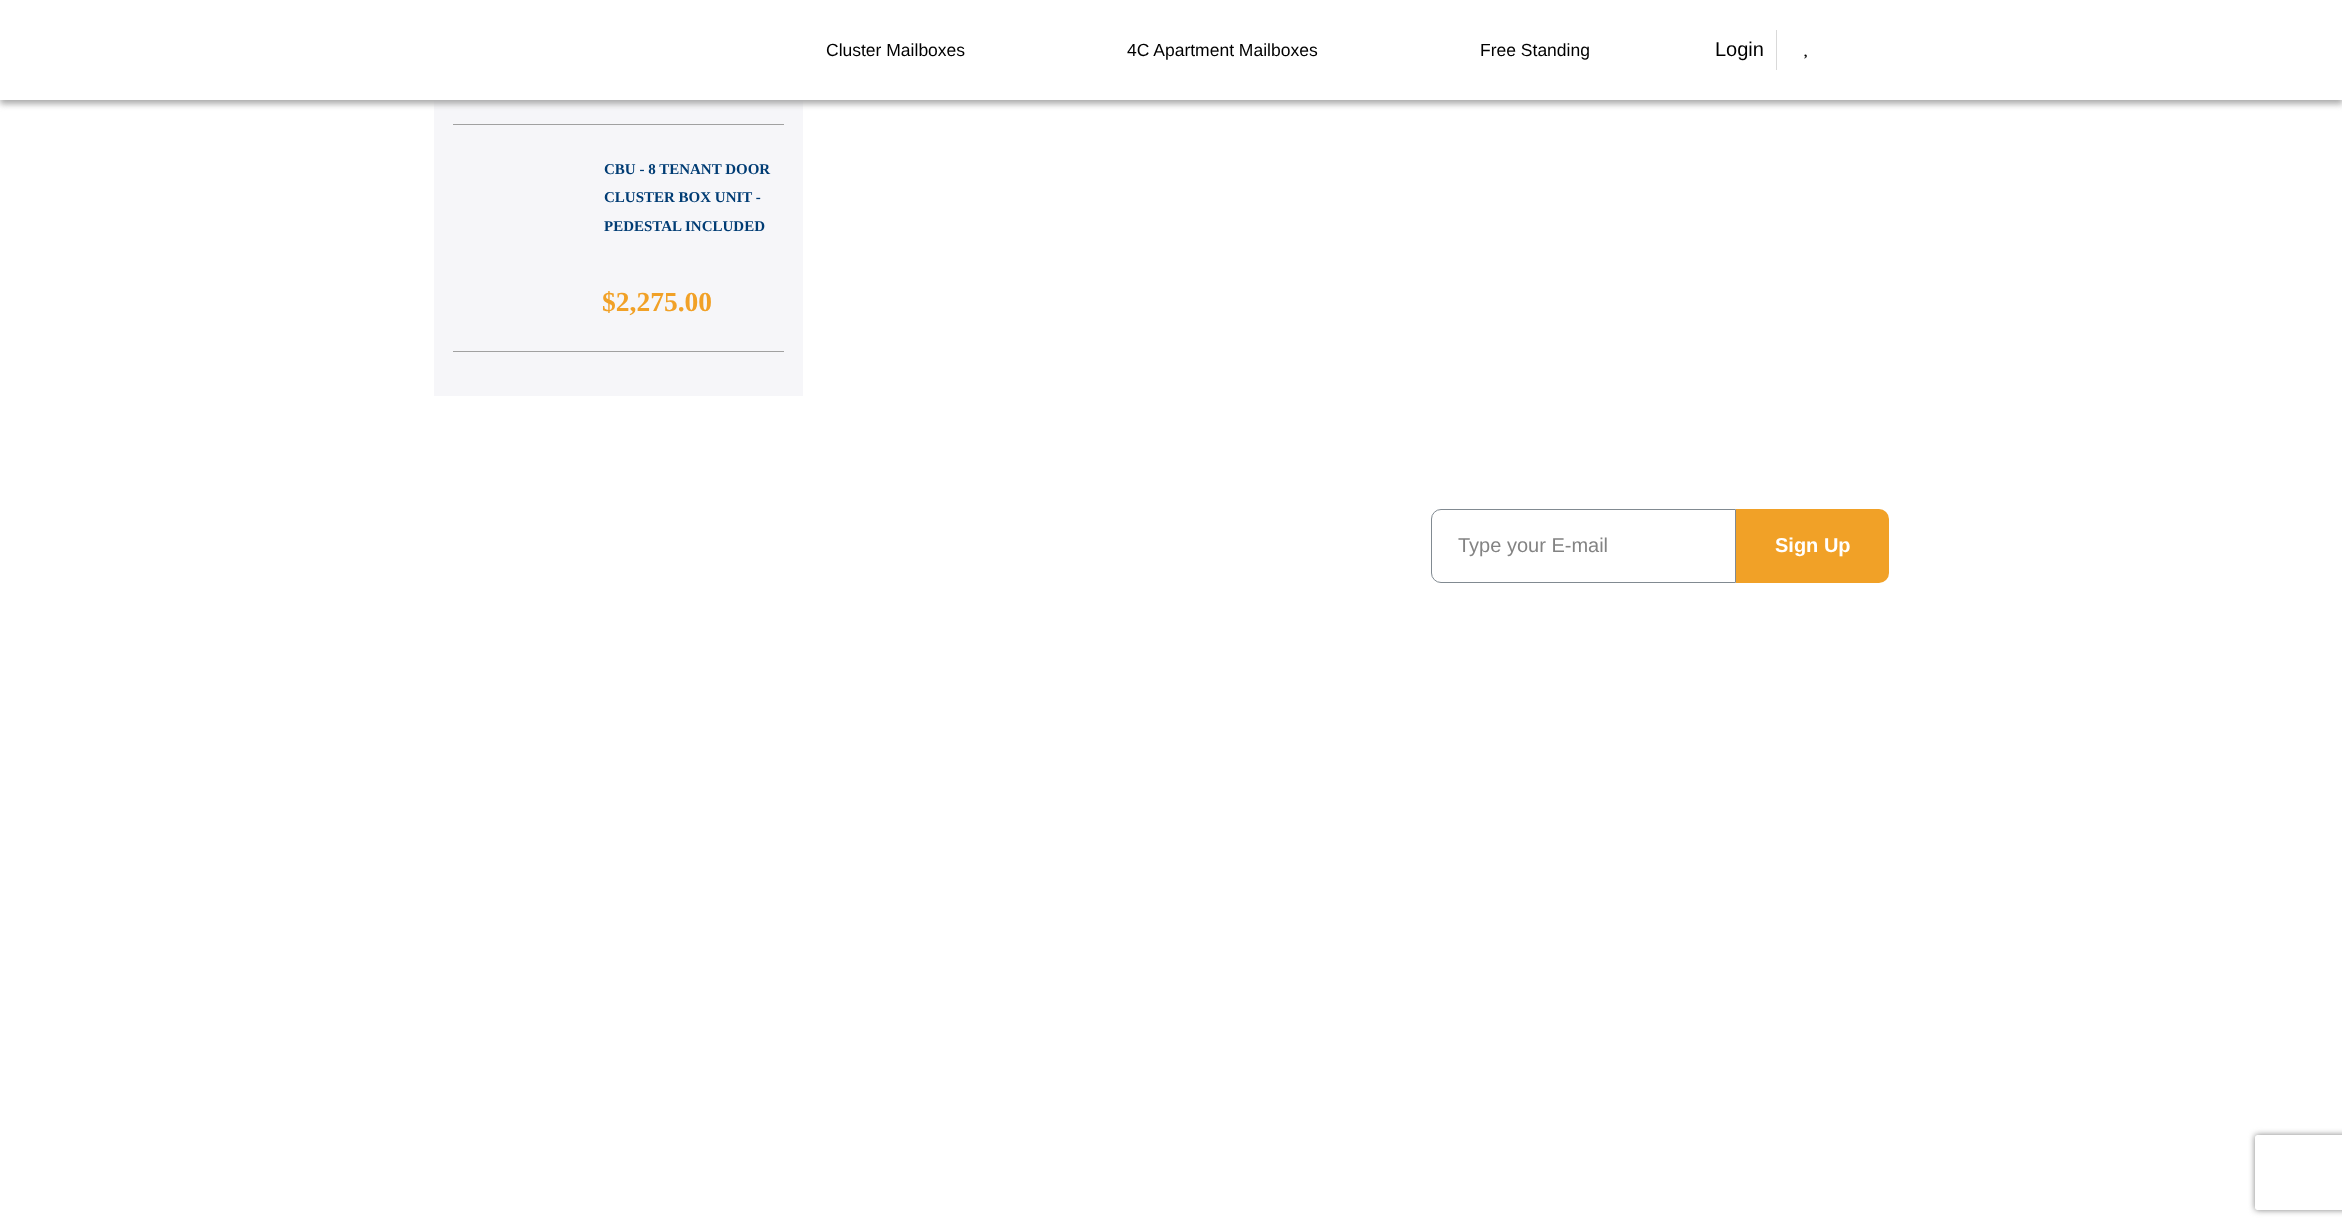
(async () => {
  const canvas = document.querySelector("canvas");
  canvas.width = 2342;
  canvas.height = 1227;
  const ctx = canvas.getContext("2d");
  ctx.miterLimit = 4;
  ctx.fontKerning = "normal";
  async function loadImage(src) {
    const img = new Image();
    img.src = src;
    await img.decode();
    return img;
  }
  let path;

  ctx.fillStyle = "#ffffff";
  ctx.fillRect(0, 0, 2342, 1227);
  ctx.fillStyle = "#f6f6f9";
  ctx.fillRect(434, 100, 369, 296);
  ctx.fillStyle = "#aaaaaa";
  ctx.filter = "blur(3px)";
  ctx.beginPath();
  ctx.rect(0, 4, 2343, 100);
  ctx.fill();
  ctx.filter = "none";
  ctx.fillStyle = "#ffffff";
  ctx.fillRect(0, 0, 2342, 100);
  ctx.fillStyle = "#d9d9d9";
  ctx.fillRect(1776, 30, 1, 40);
  ctx.drawImage(await loadImage("img/1.png"), 1804, 54, 3, 5);
  ctx.fillStyle = "#a1a1a1";
  ctx.fillRect(453, 124, 331, 1);
  ctx.fillRect(453, 351, 331, 1);
  ctx.beginPath();
  ctx.roundRect(1431.5, 509.5, 304, 73, [9.5, 0, 0, 9.5]);
  ctx.strokeStyle = "#818a91";
  ctx.stroke();
  ctx.fillStyle = "#f1a127";
  ctx.beginPath();
  ctx.roundRect(1736, 509, 153, 74, [0, 10, 10, 0]);
  ctx.fill();
  ctx.save();
  path = new Path2D("M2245 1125H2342V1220H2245ZM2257.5 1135H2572.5C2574 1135 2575 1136 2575 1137.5V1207.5C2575 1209 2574 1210 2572.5 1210H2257.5C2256 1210 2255 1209 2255 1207.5V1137.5C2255 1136 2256 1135 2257.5 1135Z");
  ctx.clip(path, "evenodd");
  ctx.fillStyle = "#808080";
  ctx.filter = "blur(3px)";
  ctx.beginPath();
  ctx.roundRect(2255, 1135, 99, 75, 2.5);
  ctx.fill();
  ctx.filter = "none";
  ctx.restore();
  ctx.font = "17.5px Liberation Sans";
  ctx.fillStyle = "#000000";
  for (const [text, x, y] of [
    ["Cluster Mailboxes", 826, 56],
    ["4C Apartment Mailboxes", 1127, 56],
    ["Free Standing", 1480, 56],
  ]) {
    ctx.fillText(text, x, y);
  }
  ctx.font = "20px Liberation Sans";
  ctx.fillText("Login", 1715, 56);
  ctx.font = "bold 15px Liberation Serif";
  ctx.fillStyle = "#003c74";
  for (const [text, x, y] of [
    ["CBU - 8 TENANT DOOR", 604, 174],
    ["CLUSTER BOX UNIT -", 604, 202],
    ["PEDESTAL INCLUDED", 604, 231],
  ]) {
    ctx.fillText(text, x, y);
  }
  ctx.font = "bold 27.5px Liberation Serif";
  ctx.fillStyle = "#f1a127";
  ctx.fillText("$2,275.00", 602, 311);
  ctx.font = "20px Liberation Sans";
  ctx.fillStyle = "#838383";
  ctx.fillText("Type your E-mail", 1458, 552);
  ctx.font = "bold 20px Liberation Sans";
  ctx.fillStyle = "#ffffff";
  ctx.fillText("Sign Up", 1775, 552);
})();
